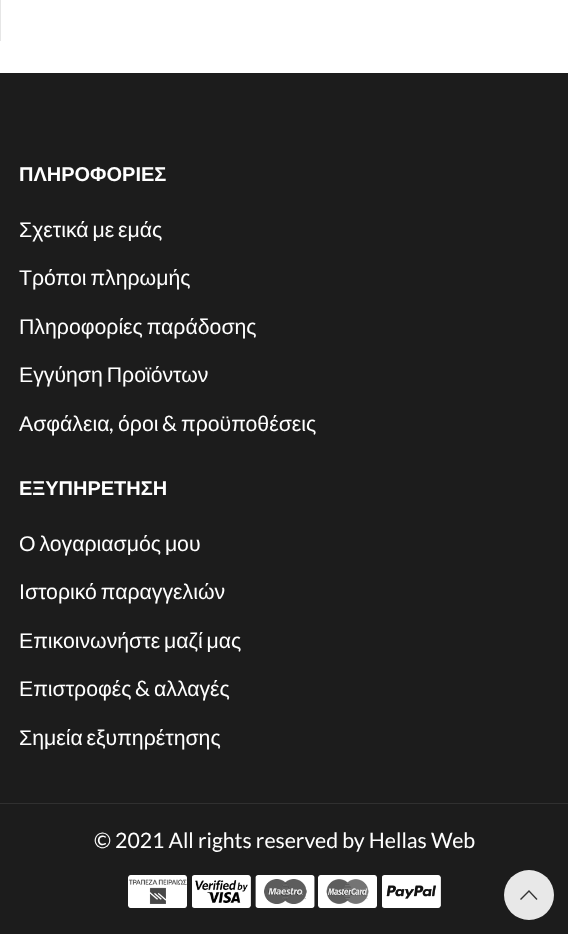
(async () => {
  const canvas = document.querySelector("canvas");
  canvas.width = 568;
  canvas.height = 934;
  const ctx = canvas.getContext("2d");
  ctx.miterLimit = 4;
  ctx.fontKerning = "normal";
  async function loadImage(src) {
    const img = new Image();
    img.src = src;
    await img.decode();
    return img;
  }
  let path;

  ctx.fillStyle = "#ffffff";
  ctx.fillRect(0, 0, 568, 934);
  for (const [x, y, w, h, color] of [
    [0, 0, 1, 41, "#e6e6e6"],
    [0, 73, 568, 861, "#1c1c1c"],
    [0, 803, 568, 1, "#303030"],
  ]) {
    ctx.fillStyle = color;
    ctx.fillRect(x, y, w, h);
  }
  ctx.drawImage(await loadImage("img/1.png"), 128, 875, 59, 33);
  ctx.drawImage(await loadImage("img/2.png"), 192, 875, 59, 33);
  ctx.drawImage(await loadImage("img/3.png"), 255, 875, 60, 33);
  ctx.drawImage(await loadImage("img/4.png"), 318, 875, 59, 33);
  ctx.drawImage(await loadImage("img/5.png"), 382, 875, 59, 33);
  ctx.fillStyle = "#e8e8e8";
  ctx.beginPath();
  ctx.arc(529, 895, 25, 0, Math.PI * 2);
  ctx.fill();
  ctx.fillStyle = "#333333";
  path = new Path2D("M529 890L537.5 899L536.5 900L529 892L521 900L520 899Z");
  ctx.fill(path);
  ctx.font = "bold 20px Liberation Sans";
  ctx.fillStyle = "#ffffff";
  ctx.fillText("ΠΛΗΡΟΦΟΡΙΕΣ", 19, 181);
  ctx.wordSpacing = "-2px";
  ctx.font = "21.25px Liberation Sans";
  for (const [text, x, y] of [
    ["Σχετικά με εμάς", 19, 237],
    ["Τρόποι πληρωμής", 19, 285],
    ["Πληροφορίες παράδοσης", 19, 334],
    ["Εγγύηση Προϊόντων", 19, 382],
  ]) {
    ctx.fillText(text, x, y);
  }
  ctx.wordSpacing = "0px";
  ctx.fillText("Ασφάλεια", 19, 431);
  ctx.font = "21.25px Lato";
  ctx.fillText(",", 109, 431);
  ctx.font = "21.25px Liberation Sans";
  ctx.fillText("όροι", 118, 431);
  ctx.font = "21.25px Lato";
  ctx.fillText("&", 162, 431);
  ctx.font = "21.25px Liberation Sans";
  ctx.fillText("προϋποθέσεις", 181, 431);
  ctx.font = "bold 20px Liberation Sans";
  ctx.fillText("ΕΞΥΠΗΡΕΤΗΣΗ", 19, 495);
  ctx.wordSpacing = "-2px";
  ctx.font = "21.25px Liberation Sans";
  for (const [text, x, y] of [
    ["Ο λογαριασμός μου", 19, 551],
    ["Ιστορικό παραγγελιών", 19, 599],
    ["Επικοινωνήστε μαζί μας", 19, 648],
  ]) {
    ctx.fillText(text, x, y);
  }
  ctx.wordSpacing = "0px";
  ctx.fillText("Επιστροφές", 19, 696);
  ctx.font = "21.25px Lato";
  ctx.fillText("&", 135, 696);
  ctx.font = "21.25px Liberation Sans";
  ctx.fillText("αλλαγές", 154, 696);
  ctx.wordSpacing = "-2px";
  ctx.fillText("Σημεία εξυπηρέτησης", 19, 745);
  ctx.wordSpacing = "0px";
  ctx.font = "21.25px Lato";
  ctx.fillText("© 2021 All rights reserved by Hellas Web", 94, 848);
})();
